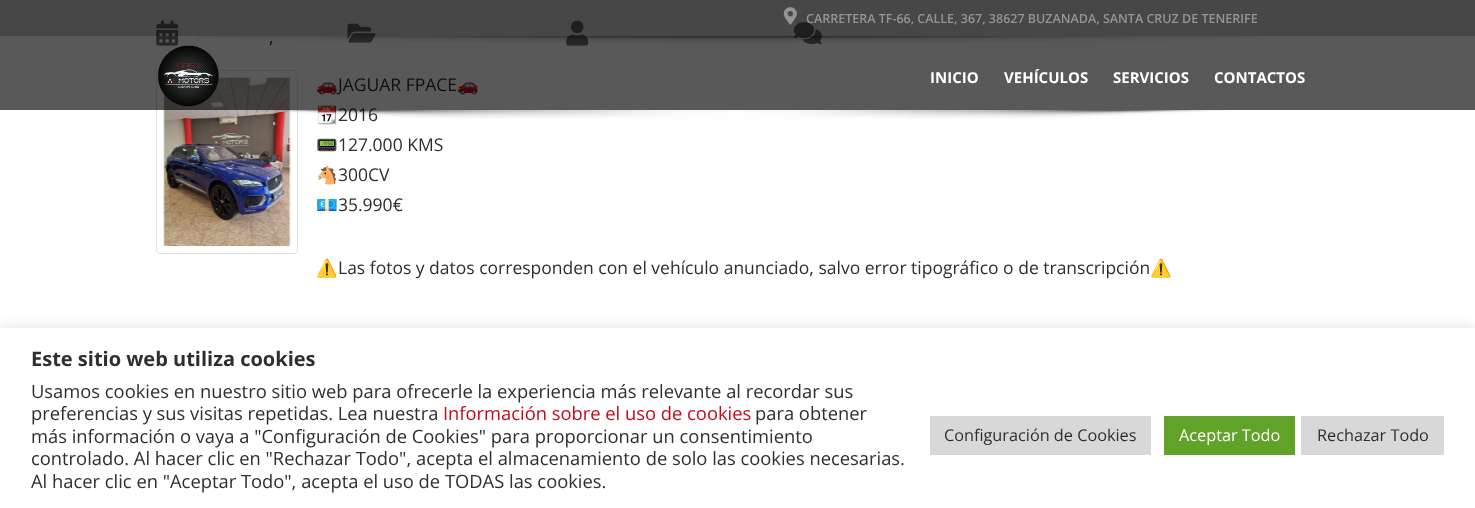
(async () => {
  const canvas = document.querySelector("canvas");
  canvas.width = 1475;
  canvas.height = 508;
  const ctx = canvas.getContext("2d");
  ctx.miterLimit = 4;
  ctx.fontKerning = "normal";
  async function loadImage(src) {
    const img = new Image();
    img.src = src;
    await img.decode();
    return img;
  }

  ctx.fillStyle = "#ffffff";
  ctx.fillRect(0, 0, 1475, 508);
  ctx.drawImage(await loadImage("img/5.png"), 156, 20, 23, 26);
  ctx.drawImage(await loadImage("img/6.png"), 347, 23, 29, 20);
  ctx.drawImage(await loadImage("img/7.png"), 566, 20, 23, 26);
  ctx.drawImage(await loadImage("img/8.png"), 793, 22, 29, 23);
  ctx.beginPath();
  ctx.roundRect(156.5, 70.5, 141, 183, 3.5);
  ctx.strokeStyle = "#dfdfdf";
  ctx.stroke();
  ctx.drawImage(await loadImage("img/9.png"), 163, 77, 128, 170);
  ctx.fillStyle = "rgba(172, 171, 171, 0.3)";
  ctx.filter = "blur(6px)";
  ctx.beginPath();
  ctx.rect(0, 326, 1475, 182);
  ctx.fill();
  ctx.filter = "none";
  for (const [x, y, w, h, color] of [
    [0, 328, 1475, 180, "#ffffff"],
    [930, 416, 221, 39, "#d8d8d8"],
    [1164, 416, 131, 39, "#61a229"],
    [1301, 416, 143, 39, "#d8d8d8"],
  ]) {
    ctx.fillStyle = color;
    ctx.fillRect(x, y, w, h);
  }
  ctx.font = "17.5px Open Sans";
  ctx.fillStyle = "#2e2e2e";
  ctx.fillText(",", 269, 43);
  ctx.font = "17.5px Noto Color Emoji";
  ctx.fillText("🚗", 316, 91);
  ctx.font = "17.5px Open Sans";
  ctx.fillText("JAGUAR FPACE", 338, 91);
  ctx.font = "17.5px Noto Color Emoji";
  ctx.fillText("🚗", 457, 91);
  ctx.fillText("📆", 316, 121);
  ctx.font = "17.5px Open Sans";
  ctx.fillText("2016", 338, 121);
  ctx.fillStyle = "rgba(0, 0, 0, 0.65)";
  ctx.fillRect(0, 0, 1475, 110);
  ctx.drawImage(await loadImage("img/2.png"), 195, 36, 1067, 7);
  ctx.fillStyle = "rgba(0, 0, 0, 0.2)";
  ctx.fillRect(0, 0, 1475, 36);
  ctx.font = "600 12.5px Open Sans";
  ctx.fillStyle = "#929596";
  ctx.fillText("CARRETERA TF-66, CALLE, 367, 38627 BUZANADA, SANTA CRUZ DE TENERIFE", 806, 23);
  ctx.drawImage(await loadImage("img/1.png"), 783, 7, 14, 18);
  ctx.font = "bold 15px Open Sans";
  ctx.fillStyle = "#ffffff";
  for (const [text, x, y] of [
    ["CONTACTOS", 1214, 83],
    ["SERVICIOS", 1113, 83],
    ["VEHÍCULOS", 1004, 83],
    ["INICIO", 930, 83],
  ]) {
    ctx.fillText(text, x, y);
  }
  ctx.drawImage(await loadImage("img/3.png"), 158, 45, 61, 62);
  ctx.drawImage(await loadImage("img/4.png"), 244, 110, 987, 9);
  ctx.font = "17.5px Noto Color Emoji";
  ctx.fillStyle = "#2e2e2e";
  ctx.fillText("📟", 316, 151);
  ctx.font = "17.5px Open Sans";
  ctx.fillText("127.000 KMS", 338, 151);
  ctx.font = "17.5px Noto Color Emoji";
  ctx.fillText("🐴", 316, 181);
  ctx.font = "17.5px Open Sans";
  ctx.fillText("300CV", 338, 181);
  ctx.font = "17.5px Noto Color Emoji";
  ctx.fillText("💶", 316, 211);
  ctx.font = "17.5px Open Sans";
  ctx.fillText("35.990€", 338, 211);
  ctx.font = "17.5px Noto Color Emoji";
  ctx.fillText("⚠️", 316, 274);
  ctx.font = "17.5px Open Sans";
  ctx.fillText("Las fotos y datos corresponden con el vehículo anunciado, salvo error tipográfico o de transcripción", 338, 274);
  ctx.font = "17.5px Noto Color Emoji";
  ctx.fillText("⚠️", 1150, 274);
  ctx.font = "bold 20px Open Sans";
  ctx.fillText("Este sitio web utiliza cookies", 31, 366);
  ctx.font = "18.35px Open Sans";
  ctx.fillText("Usamos cookies en nuestro sitio web para ofrecerle la experiencia más relevante al recordar sus", 31, 398);
  ctx.fillText("preferencias y sus visitas repetidas. Lea nuestra", 31, 420);
  ctx.fillStyle = "#c7081b";
  ctx.fillText("Información sobre el uso de cookies", 443, 420);
  ctx.fillStyle = "#2e2e2e";
  for (const [text, x, y] of [
    ["para obtener", 755, 420],
    ["más información o vaya a \"Configuración de Cookies\" para proporcionar un consentimiento", 31, 443],
    ["controlado. Al hacer clic en \"Rechazar Todo\", acepta el almacenamiento de solo las cookies necesarias.", 31, 465],
    ["Al hacer clic en \"Aceptar Todo\", acepta el uso de TODAS las cookies.", 31, 488],
  ]) {
    ctx.fillText(text, x, y);
  }
  ctx.font = "16.25px Open Sans";
  ctx.fillText("Configuración de Cookies", 944, 441);
  ctx.fillStyle = "#ffffff";
  ctx.fillText("Aceptar Todo", 1179, 441);
  ctx.fillStyle = "#2e2e2e";
  ctx.fillText("Rechazar Todo", 1317, 441);
})();
